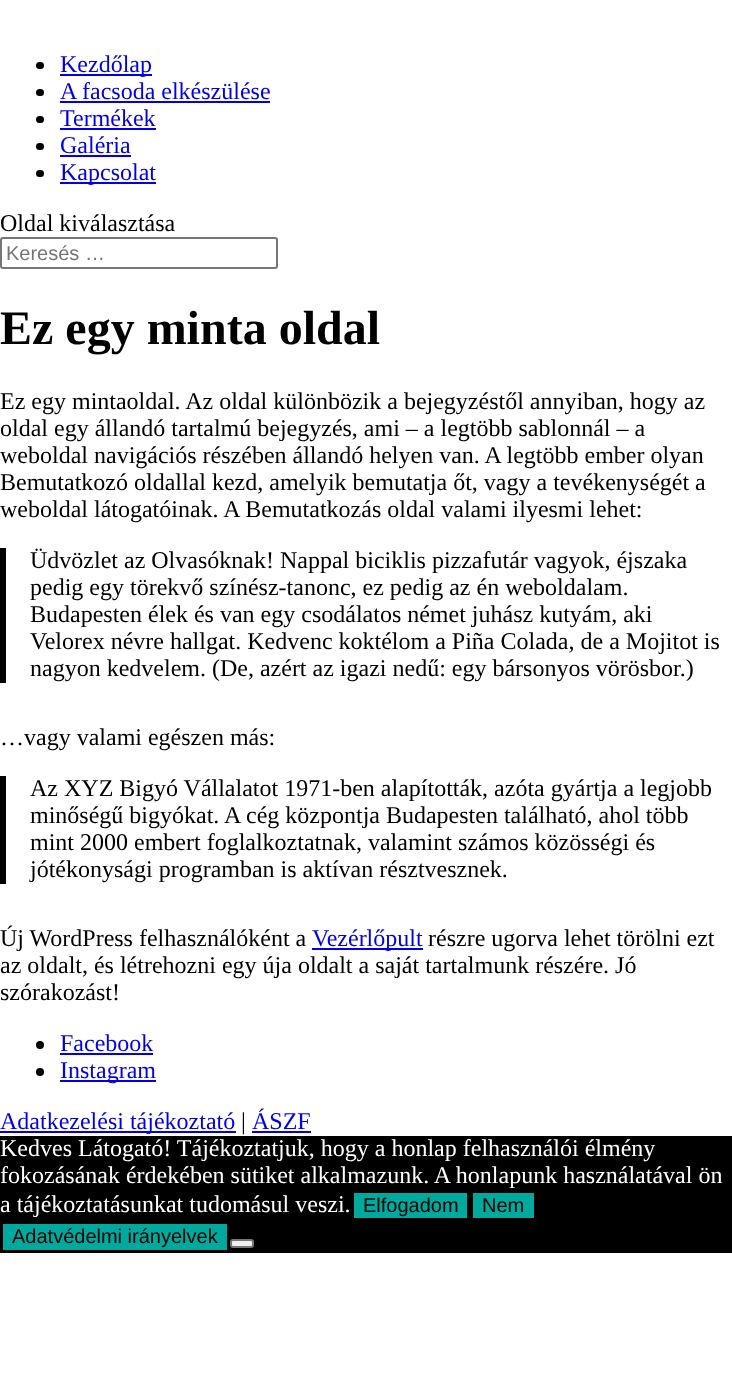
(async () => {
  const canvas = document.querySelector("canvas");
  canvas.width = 732;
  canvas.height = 1400;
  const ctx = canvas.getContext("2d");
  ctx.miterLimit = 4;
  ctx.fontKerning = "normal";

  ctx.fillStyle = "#ffffff";
  ctx.fillRect(0, 0, 732, 1400);
  ctx.fillStyle = "#000000";
  ctx.beginPath();
  ctx.roundRect(36, 62, 8, 7, 3.5);
  ctx.fill();
  ctx.fillStyle = "#0000ee";
  ctx.fillRect(60, 74, 92, 2);
  ctx.fillStyle = "#000000";
  ctx.beginPath();
  ctx.roundRect(36, 89, 8, 7, 3.5);
  ctx.fill();
  ctx.fillStyle = "#0000ee";
  ctx.fillRect(60, 101, 210, 2);
  ctx.fillStyle = "#000000";
  ctx.beginPath();
  ctx.roundRect(36, 116, 8, 7, 3.5);
  ctx.fill();
  ctx.fillStyle = "#0000ee";
  ctx.fillRect(60, 128, 96, 2);
  ctx.fillStyle = "#000000";
  ctx.beginPath();
  ctx.roundRect(36, 143, 8, 7, 3.5);
  ctx.fill();
  ctx.fillStyle = "#0000ee";
  ctx.fillRect(60, 155, 71, 2);
  ctx.fillStyle = "#000000";
  ctx.beginPath();
  ctx.roundRect(36, 170, 8, 7, 3.5);
  ctx.fill();
  ctx.fillStyle = "#0000ee";
  ctx.fillRect(60, 182, 96, 2);
  ctx.beginPath();
  ctx.roundRect(1, 238, 276, 30, 2);
  ctx.strokeStyle = "#767676";
  ctx.lineWidth = 2;
  ctx.stroke();
  for (const [x, y, w, h, color] of [
    [0, 548, 6, 135, "#000000"],
    [0, 776, 6, 108, "#000000"],
    [312, 948, 111, 2, "#0000ee"],
  ]) {
    ctx.fillStyle = color;
    ctx.fillRect(x, y, w, h);
  }
  ctx.fillStyle = "#000000";
  ctx.beginPath();
  ctx.arc(40, 1045, 4, 0, Math.PI * 2);
  ctx.fill();
  ctx.fillStyle = "#0000ee";
  ctx.fillRect(60, 1053, 93, 2);
  ctx.fillStyle = "#000000";
  ctx.beginPath();
  ctx.arc(40, 1072, 4, 0, Math.PI * 2);
  ctx.fill();
  for (const [x, y, w, h, color] of [
    [60, 1080, 96, 2, "#0000ee"],
    [0, 1131, 236, 2, "#0000ee"],
    [252, 1131, 59, 2, "#0000ee"],
    [0, 1136, 732, 117, "#000000"],
    [354, 1193, 113, 25, "#00a99d"],
    [473, 1193, 61, 25, "#00a99d"],
    [3, 1224, 224, 26, "#00a99d"],
  ]) {
    ctx.fillStyle = color;
    ctx.fillRect(x, y, w, h);
  }
  ctx.fillStyle = "#efefef";
  ctx.beginPath();
  ctx.roundRect(231, 1240, 22, 7, 2);
  ctx.fill();
  ctx.stroke();
  ctx.font = "24px Liberation Serif";
  ctx.fillStyle = "#0000ee";
  for (const [text, x, y] of [
    ["Kezdőlap", 60, 72],
    ["A facsoda elkészülése", 60, 99],
    ["Termékek", 60, 126],
    ["Galéria", 60, 153],
    ["Kapcsolat", 60, 180],
  ]) {
    ctx.fillText(text, x, y);
  }
  ctx.fillStyle = "#000000";
  ctx.fillText("Oldal kiválasztása", 0, 231);
  ctx.font = "20px Liberation Sans";
  ctx.fillStyle = "#757575";
  ctx.fillText("Keresés …", 6, 260);
  ctx.font = "bold 48px Liberation Serif";
  ctx.fillStyle = "#000000";
  ctx.fillText("Ez egy minta oldal", 0, 344);
  ctx.font = "24px Liberation Serif";
  for (const [text, x, y] of [
    ["Ez egy mintaoldal. Az oldal különbözik a bejegyzéstől annyiban, hogy az", 0, 409],
    ["oldal egy állandó tartalmú bejegyzés, ami – a legtöbb sablonnál – a", 0, 436],
    ["weboldal navigációs részében állandó helyen van. A legtöbb ember olyan", 0, 463],
    ["Bemutatkozó oldallal kezd, amelyik bemutatja őt, vagy a tevékenységét a", 0, 490],
    ["weboldal látogatóinak. A Bemutatkozás oldal valami ilyesmi lehet:", 0, 517],
    ["Üdvözlet az Olvasóknak! Nappal biciklis pizzafutár vagyok, éjszaka", 30, 568],
    ["pedig egy törekvő színész-tanonc, ez pedig az én weboldalam.", 30, 595],
    ["Budapesten élek és van egy csodálatos német juhász kutyám, aki", 30, 622],
    ["Velorex névre hallgat. Kedvenc koktélom a Piña Colada, de a Mojitot is", 30, 649],
    ["nagyon kedvelem. (De, azért az igazi nedű: egy bársonyos vörösbor.)", 30, 676],
    ["…vagy valami egészen más:", 0, 745],
    ["Az XYZ Bigyó Vállalatot 1971-ben alapították, azóta gyártja a legjobb", 30, 796],
    ["minőségű bigyókat. A cég központja Budapesten található, ahol több", 30, 823],
    ["mint 2000 embert foglalkoztatnak, valamint számos közösségi és", 30, 850],
    ["jótékonysági programban is aktívan résztvesznek.", 30, 877],
    ["Új WordPress felhasználóként a", 0, 946],
  ]) {
    ctx.fillText(text, x, y);
  }
  ctx.fillStyle = "#0000ee";
  ctx.fillText("Vezérlőpult", 312, 946);
  ctx.fillStyle = "#000000";
  for (const [text, x, y] of [
    ["részre ugorva lehet törölni ezt", 428, 946],
    ["az oldalt, és létrehozni egy úja oldalt a saját tartalmunk részére. Jó", 0, 973],
    ["szórakozást!", 0, 1000],
  ]) {
    ctx.fillText(text, x, y);
  }
  ctx.fillStyle = "#0000ee";
  for (const [text, x, y] of [
    ["Facebook", 60, 1051],
    ["Instagram", 60, 1078],
    ["Adatkezelési tájékoztató", 0, 1129],
  ]) {
    ctx.fillText(text, x, y);
  }
  ctx.fillStyle = "#000000";
  ctx.fillText("|", 241, 1129);
  ctx.fillStyle = "#0000ee";
  ctx.fillText("ÁSZF", 252, 1129);
  ctx.fillStyle = "#ffffff";
  for (const [text, x, y] of [
    ["Kedves Látogató! Tájékoztatjuk, hogy a honlap felhasználói élmény", 0, 1156],
    ["fokozásának érdekében sütiket alkalmazunk. A honlapunk használatával ön", 0, 1183],
    ["a tájékoztatásunkat tudomásul veszi.", 0, 1212],
  ]) {
    ctx.fillText(text, x, y);
  }
  ctx.font = "20px Liberation Sans";
  ctx.fillStyle = "#000000";
  for (const [text, x, y] of [
    ["Elfogadom", 363, 1212],
    ["Nem", 482, 1212],
    ["Adatvédelmi irányelvek", 12, 1243],
  ]) {
    ctx.fillText(text, x, y);
  }
})();
